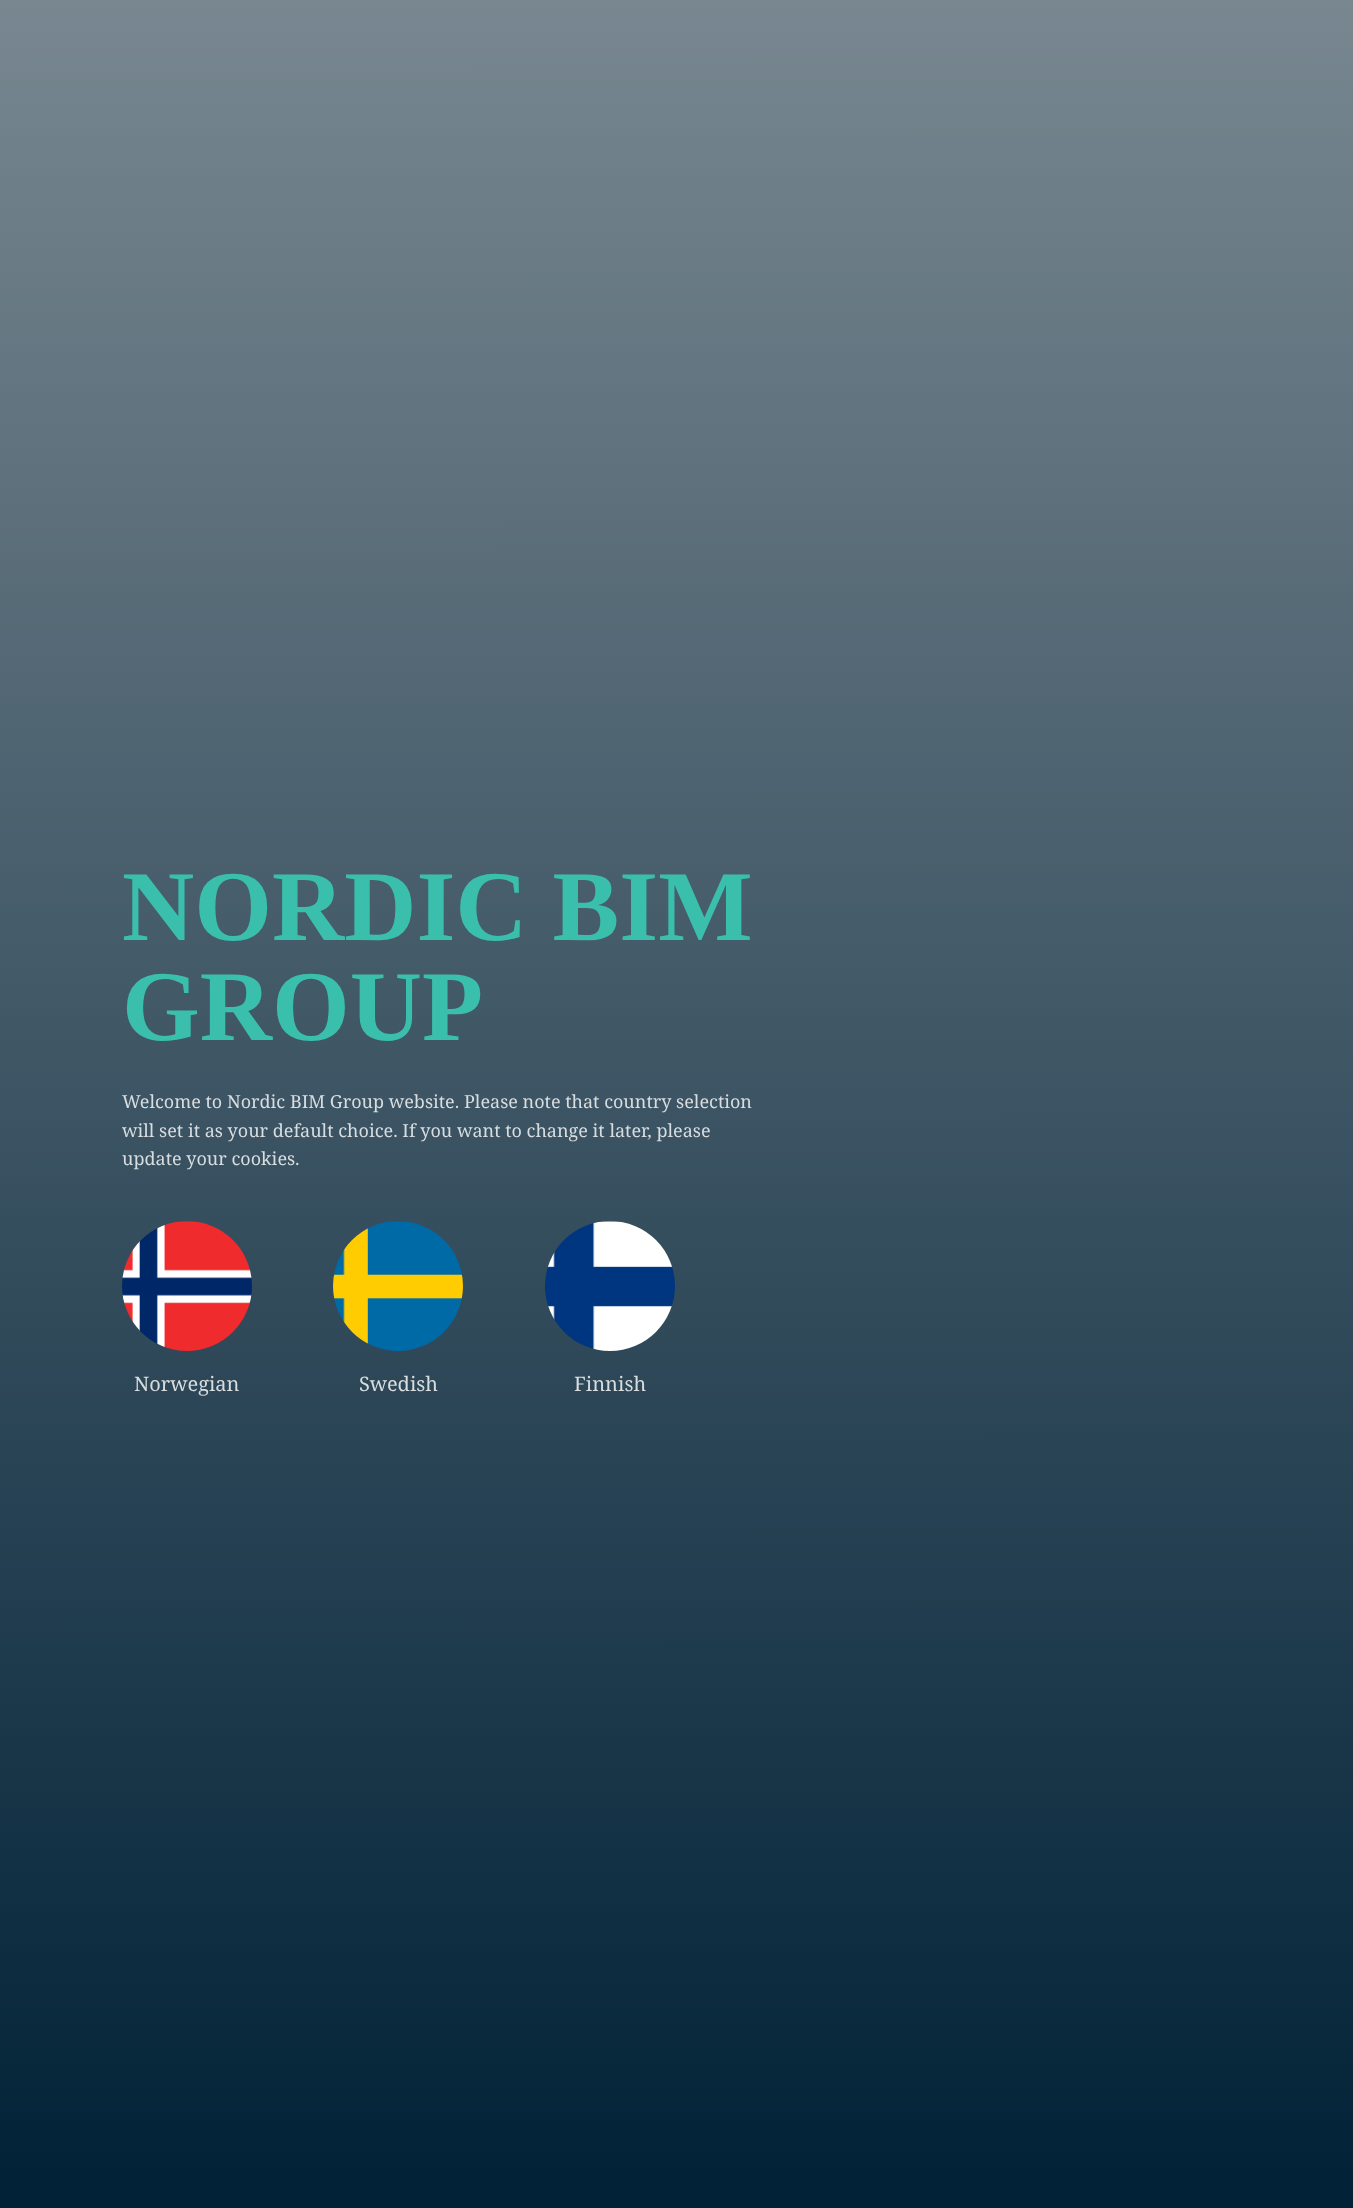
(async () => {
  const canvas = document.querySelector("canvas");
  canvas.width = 1353;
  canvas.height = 2208;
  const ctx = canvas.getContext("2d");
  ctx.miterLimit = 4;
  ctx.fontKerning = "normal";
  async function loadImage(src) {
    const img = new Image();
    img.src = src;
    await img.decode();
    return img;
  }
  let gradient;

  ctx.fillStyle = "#ffffff";
  ctx.fillRect(0, 0, 1353, 2208);
  gradient = ctx.createLinearGradient(676, 0, 677, 2208);
  gradient.addColorStop(0, "#788790");
  gradient.addColorStop(1, "#002136");
  ctx.fillStyle = gradient;
  ctx.fillRect(0, 0, 1353, 2208);
  ctx.drawImage(await loadImage("img/1.png"), 122, 1221, 130, 130);
  ctx.drawImage(await loadImage("img/2.png"), 333, 1221, 130, 130);
  ctx.drawImage(await loadImage("img/3.png"), 545, 1221, 130, 130);
  ctx.font = "bold 100px Liberation Serif";
  ctx.fillStyle = "#3bbfad";
  ctx.fillText("NORDIC BIM", 122, 940);
  ctx.fillText("GROUP", 122, 1040);
  ctx.font = "18px Noto Serif";
  ctx.fillStyle = "#d8dde0";
  for (const [text, x, y] of [
    ["Welcome to Nordic BIM Group website. Please note that country selection", 122, 1108],
    ["will set it as your default choice. If you want to change it later, please", 122, 1137],
    ["update your cookies.", 122, 1165],
  ]) {
    ctx.fillText(text, x, y);
  }
  ctx.font = "20px Noto Serif";
  for (const [text, x, y] of [
    ["Norwegian", 134, 1391],
    ["Swedish", 359, 1391],
    ["Finnish", 574, 1391],
  ]) {
    ctx.fillText(text, x, y);
  }
})();
